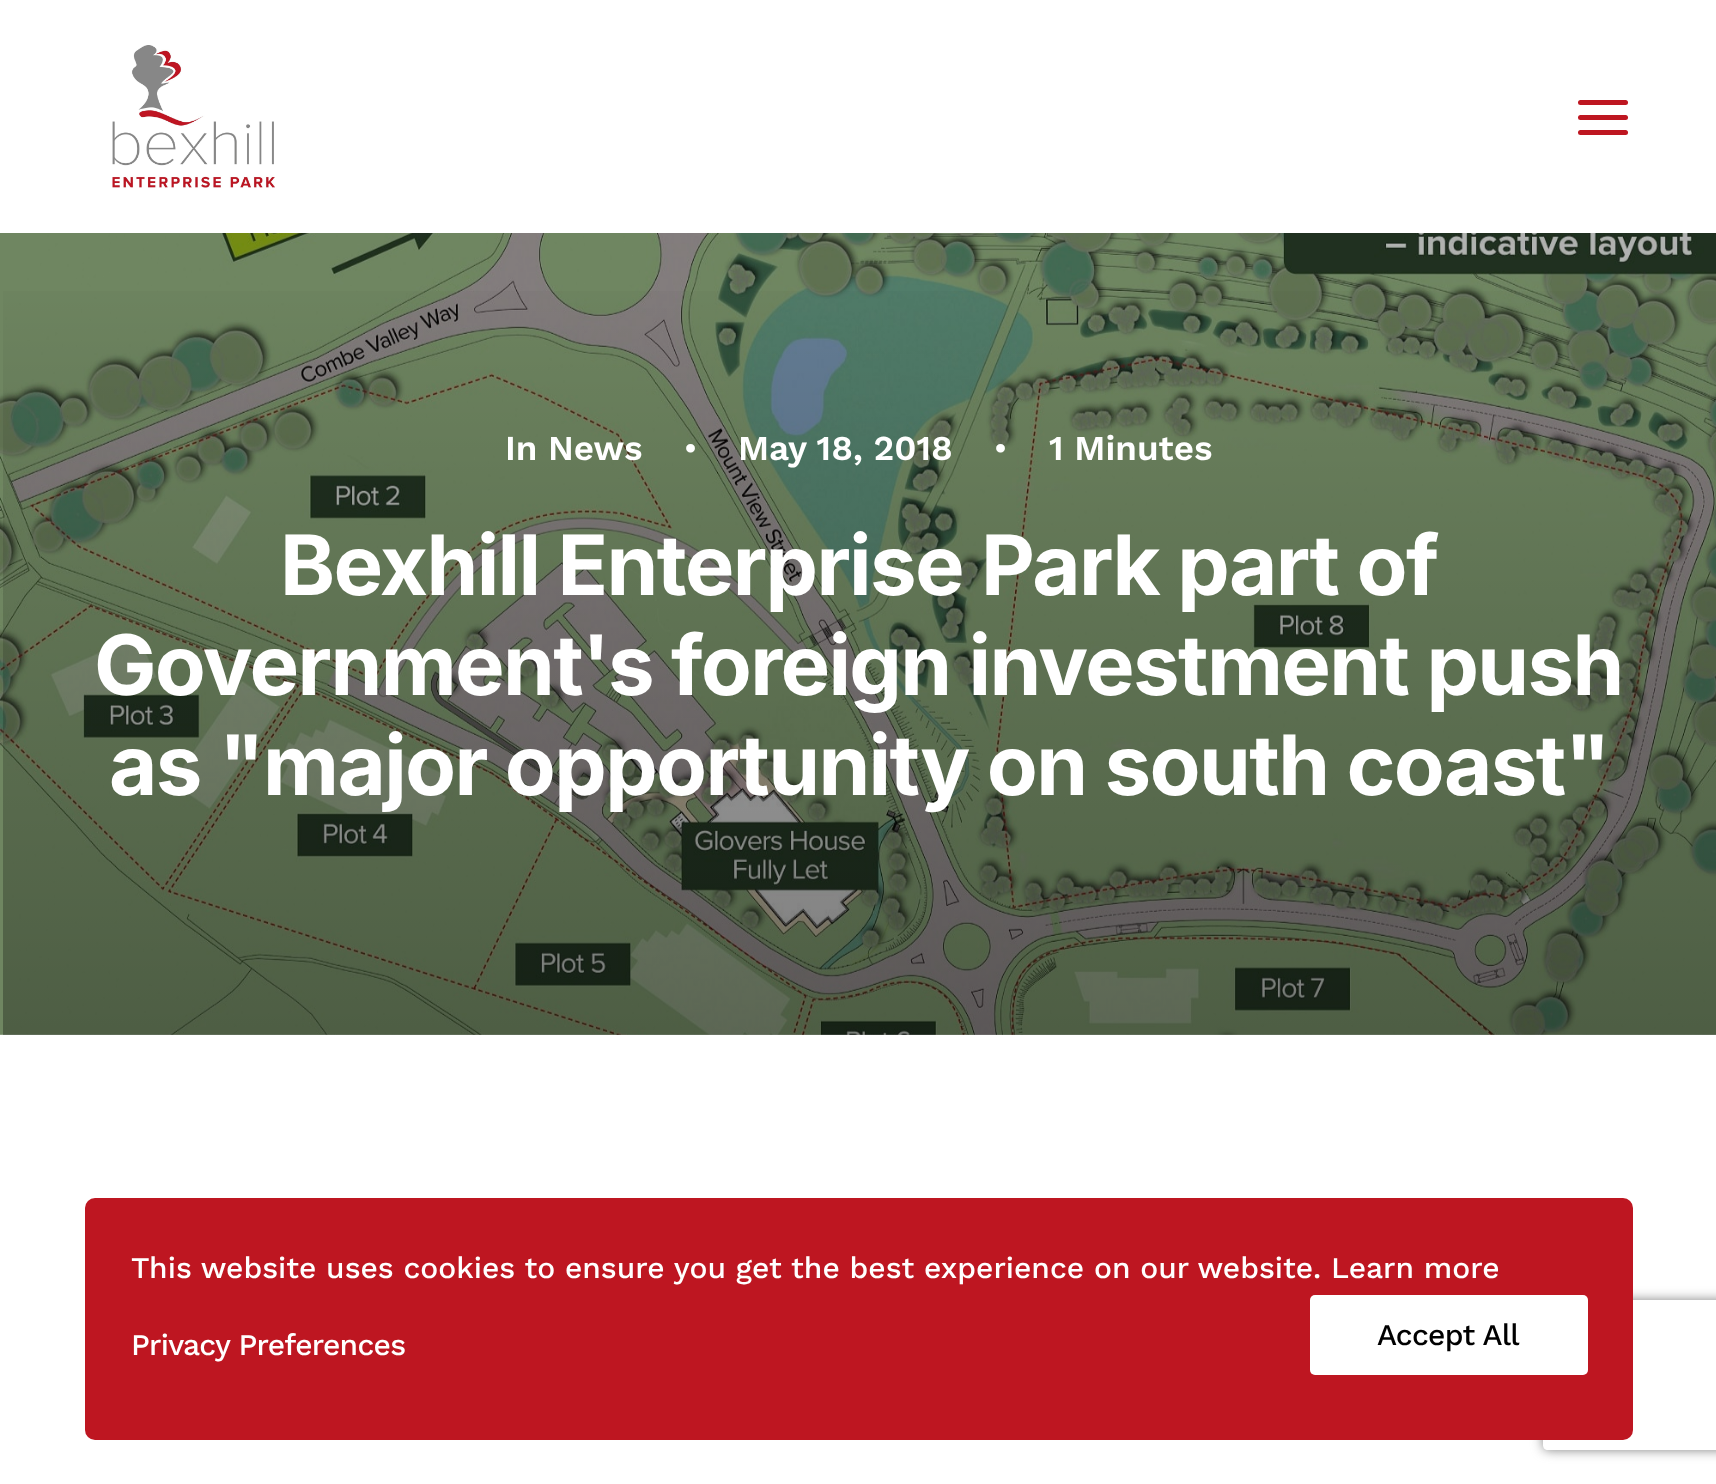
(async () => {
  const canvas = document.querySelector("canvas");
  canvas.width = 1716;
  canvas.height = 1484;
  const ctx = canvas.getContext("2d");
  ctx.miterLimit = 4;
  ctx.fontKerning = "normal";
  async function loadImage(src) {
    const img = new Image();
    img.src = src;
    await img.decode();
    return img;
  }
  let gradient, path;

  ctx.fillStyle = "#ffffff";
  ctx.fillRect(0, 0, 1716, 1484);
  ctx.drawImage(await loadImage("img/1.png"), 112, 45, 163, 143);
  ctx.fillStyle = "#be1621";
  ctx.beginPath();
  ctx.roundRect(1578, 115, 50, 5, 2.5);
  ctx.fill();
  ctx.beginPath();
  ctx.roundRect(1578, 100, 50, 5, 2.5);
  ctx.fill();
  ctx.beginPath();
  ctx.roundRect(1578, 130, 50, 5, 2.5);
  ctx.fill();
  ctx.drawImage(await loadImage("img/2.png"), 0, 233, 1716, 802);
  gradient = ctx.createLinearGradient(860, 233, 860, 1038);
  gradient.addColorStop(0, "rgba(0, 0, 0, 0)");
  gradient.addColorStop(1, "rgba(0, 0, 0, 0.3)");
  ctx.fillStyle = gradient;
  ctx.fillRect(3, 291, 1713, 744);
  ctx.save();
  path = new Path2D("M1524 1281H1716V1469H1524ZM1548 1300H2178C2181 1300 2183 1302 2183 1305V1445C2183 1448 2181 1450 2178 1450H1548C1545 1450 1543 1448 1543 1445V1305C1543 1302 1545 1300 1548 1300Z");
  ctx.clip(path, "evenodd");
  ctx.fillStyle = "#808080";
  ctx.filter = "blur(6px)";
  ctx.beginPath();
  ctx.roundRect(1543, 1300, 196, 150, 5);
  ctx.fill();
  ctx.filter = "none";
  ctx.restore();
  ctx.fillStyle = "#be1621";
  ctx.beginPath();
  ctx.roundRect(85, 1198, 1548, 242, 10);
  ctx.fill();
  ctx.fillStyle = "#ffffff";
  ctx.beginPath();
  ctx.roundRect(1310, 1295, 278, 80, 5);
  ctx.fill();
  ctx.font = "600 35px Work Sans";
  ctx.fillText("In News", 505, 460);
  ctx.font = "35px Work Sans";
  ctx.fillText("•", 683, 460);
  ctx.font = "600 35px Work Sans";
  ctx.fillText("May 18, 2018", 738, 460);
  ctx.font = "35px Work Sans";
  ctx.fillText("•", 993, 460);
  ctx.font = "600 35px Work Sans";
  ctx.fillText("1 Minutes", 1049, 460);
  ctx.letterSpacing = "-1.65px";
  ctx.font = "bold 83.3px Inter";
  for (const [text, x, y] of [
    ["Bexhill Enterprise Park part of", 280, 595],
    ["Government's foreign investment push", 94, 695],
    ["as \"major opportunity on south coast\"", 109, 795],
  ]) {
    ctx.fillText(text, x, y);
  }
  ctx.letterSpacing = "0px";
  ctx.font = "500 30px Work Sans";
  ctx.fillText("This website uses cookies to ensure you get the best experience on our website. Learn more", 131, 1278);
  ctx.letterSpacing = "-0.75px";
  ctx.fillText("Privacy Preferences", 131, 1355);
  ctx.fillStyle = "#000000";
  ctx.fillText("Accept All", 1377, 1345);
})();
